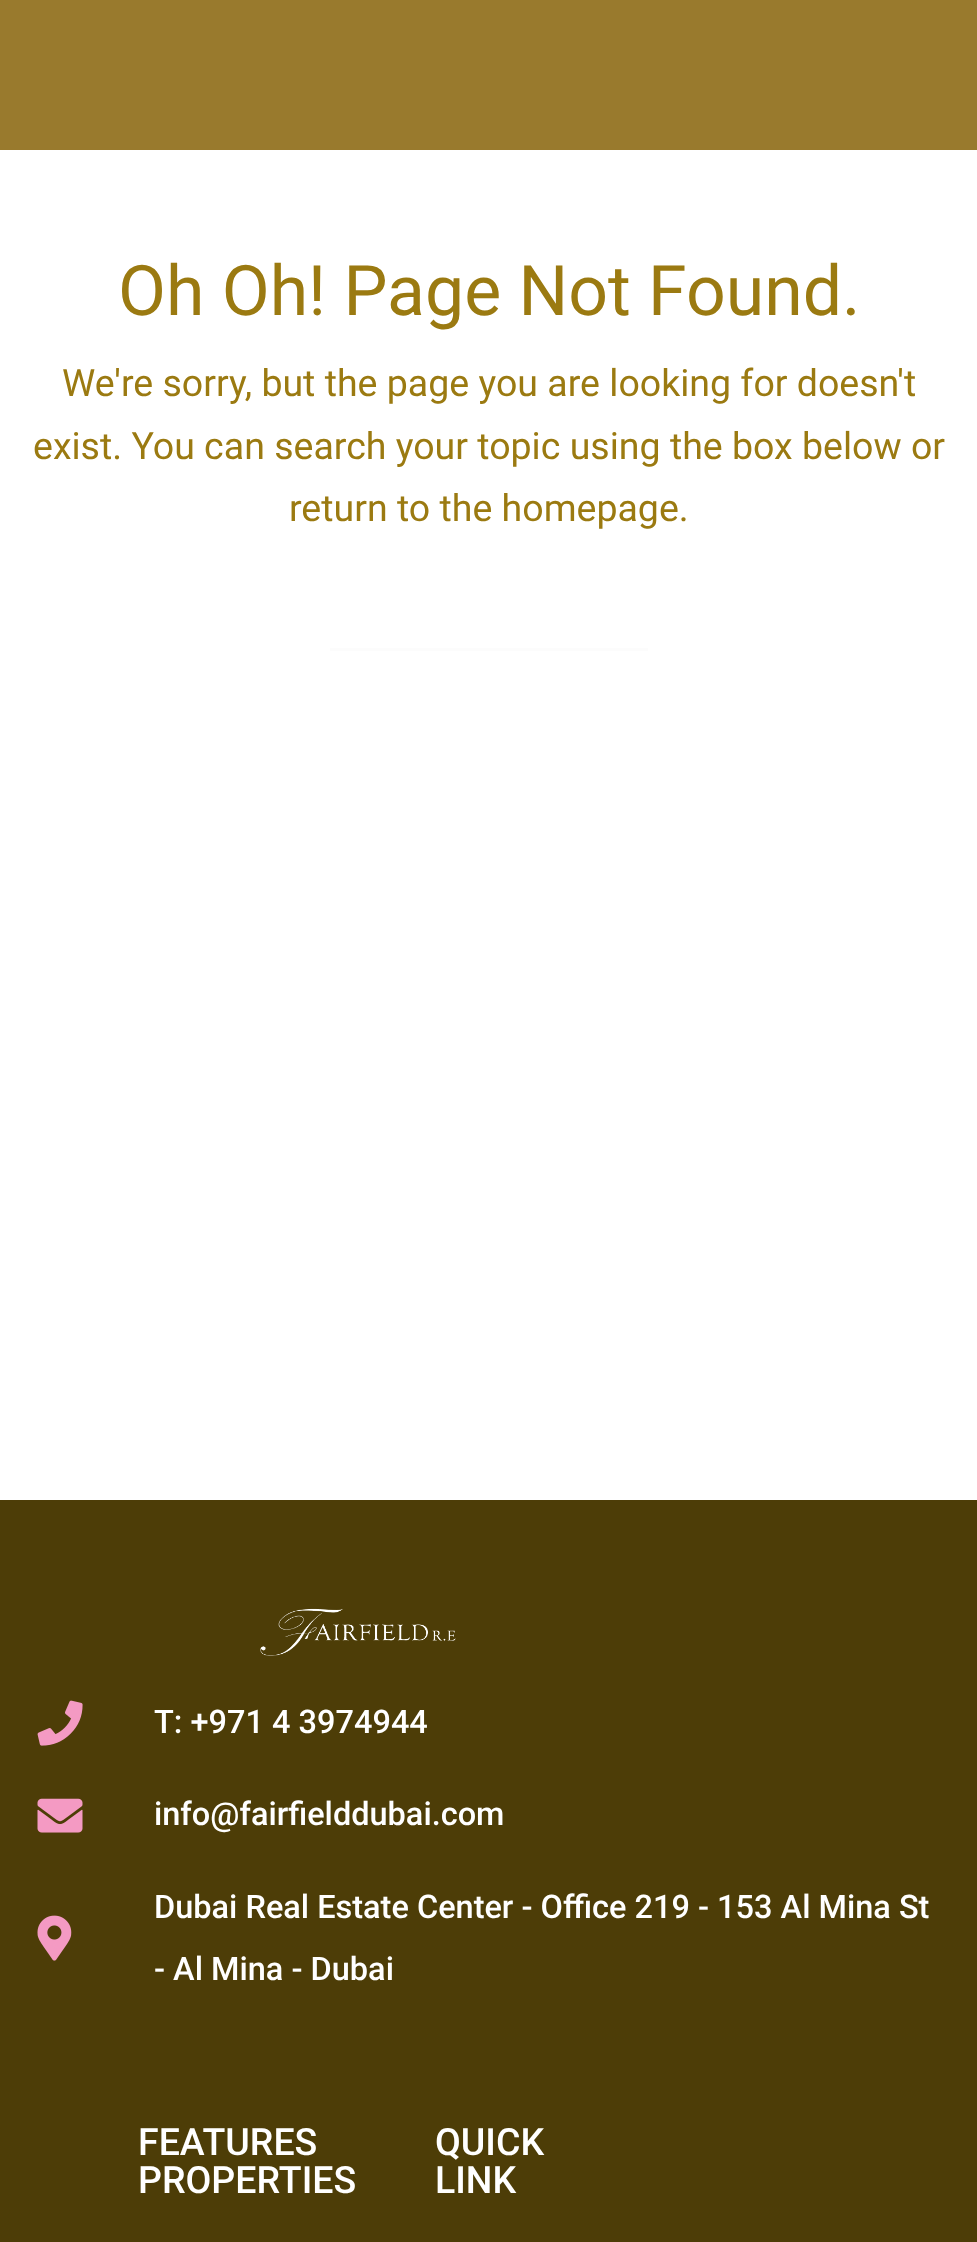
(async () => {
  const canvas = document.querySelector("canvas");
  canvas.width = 977;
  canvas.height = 2242;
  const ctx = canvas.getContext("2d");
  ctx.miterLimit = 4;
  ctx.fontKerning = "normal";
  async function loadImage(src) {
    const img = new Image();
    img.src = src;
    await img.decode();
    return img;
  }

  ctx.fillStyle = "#ffffff";
  ctx.fillRect(0, 0, 977, 2242);
  for (const [x, y, w, h, color] of [
    [0, 0, 977, 150, "#997a2d"],
    [330, 648, 318, 3, "#fcfcfc"],
    [0, 1500, 977, 742, "#4d3d07"],
  ]) {
    ctx.fillStyle = color;
    ctx.fillRect(x, y, w, h);
  }
  ctx.drawImage(await loadImage("img/1.png"), 260, 1608, 196, 48);
  ctx.drawImage(await loadImage("img/2.png"), 37, 1700, 46, 46);
  ctx.drawImage(await loadImage("img/3.png"), 37, 1798, 46, 35);
  ctx.drawImage(await loadImage("img/4.png"), 37, 1915, 35, 46);
  ctx.font = "69.75px Roboto";
  ctx.fillStyle = "#9b7a11";
  ctx.fillText("Oh Oh! Page Not Found.", 118, 315);
  ctx.font = "37.5px Roboto";
  for (const [text, x, y] of [
    ["We're sorry, but the page you are looking for doesn't", 62, 396],
    ["exist. You can search your topic using the box below or", 33, 459],
    ["return to the homepage.", 289, 521],
  ]) {
    ctx.fillText(text, x, y);
  }
  ctx.font = "500 32.5px Roboto";
  ctx.fillStyle = "#ffffff";
  for (const [text, x, y] of [
    ["T: +971 4 3974944", 154, 1733],
    ["info@fairfielddubai.com", 154, 1825],
    ["Dubai Real Estate Center - Office 219 - 153 Al Mina St", 154, 1918],
    ["- Al Mina - Dubai", 154, 1980],
  ]) {
    ctx.fillText(text, x, y);
  }
  ctx.font = "500 37.5px Roboto";
  for (const [text, x, y] of [
    ["FEATURES", 138, 2155],
    ["PROPERTIES", 138, 2193],
    ["QUICK", 435, 2155],
    ["LINK", 435, 2193],
  ]) {
    ctx.fillText(text, x, y);
  }
})();
